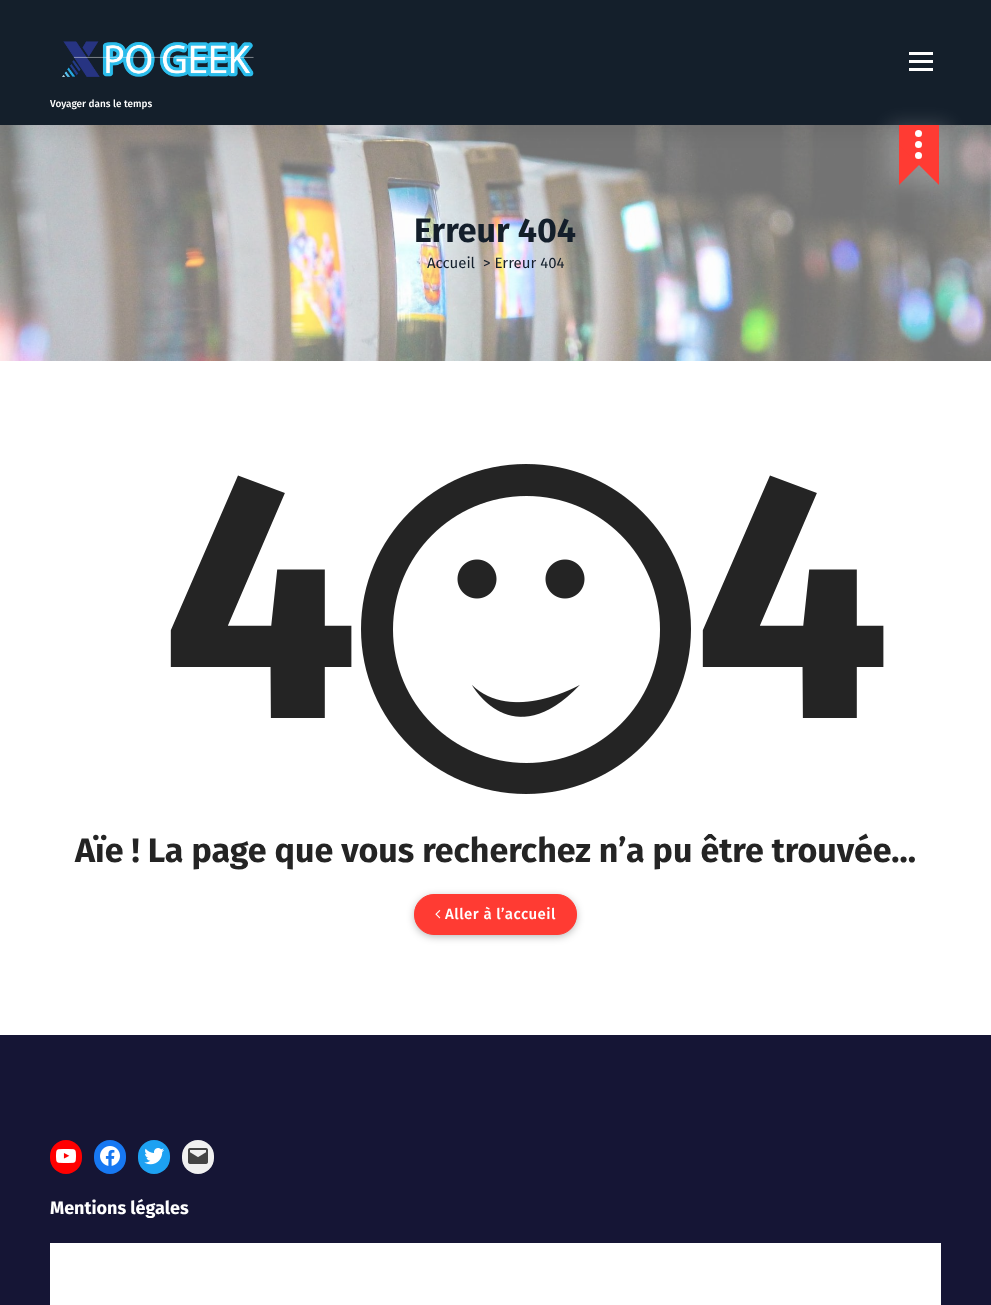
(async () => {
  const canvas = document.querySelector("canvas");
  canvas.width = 991;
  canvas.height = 1305;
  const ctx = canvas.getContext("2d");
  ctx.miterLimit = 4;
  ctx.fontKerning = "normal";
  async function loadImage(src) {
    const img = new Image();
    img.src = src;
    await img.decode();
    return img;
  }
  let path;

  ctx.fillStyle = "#ffffff";
  ctx.fillRect(0, 0, 991, 1305);
  ctx.drawImage(await loadImage("img/2.png"), 0, 125, 991, 236);
  ctx.fillStyle = "rgba(0, 0, 0, 0.05)";
  ctx.filter = "blur(7.5px)";
  ctx.beginPath();
  ctx.rect(0, 10, 991, 125);
  ctx.fill();
  ctx.filter = "none";
  for (const [x, y, w, h, color] of [
    [0, 0, 991, 125, "#141f2b"],
    [909, 52, 24, 3, "#ffffff"],
    [909, 60, 24, 3, "#ffffff"],
    [909, 68, 24, 3, "#ffffff"],
  ]) {
    ctx.fillStyle = color;
    ctx.fillRect(x, y, w, h);
  }
  ctx.drawImage(await loadImage("img/1.png"), 62, 41, 192, 36);
  ctx.fillStyle = "rgba(255, 255, 255, 0.2)";
  ctx.filter = "blur(10px)";
  ctx.beginPath();
  ctx.rect(889, 125, 60, 60);
  ctx.fill();
  ctx.filter = "none";
  ctx.fillStyle = "#ff3b33";
  ctx.fillRect(899, 125, 40, 40);
  path = new Path2D("M939 145V185L919 165ZM899 185V145L919 165Z");
  ctx.fill(path);
  ctx.fillStyle = "#ffffff";
  ctx.beginPath();
  ctx.arc(918.5, 144.5, 3.5, 0, Math.PI * 2);
  ctx.fill();
  ctx.beginPath();
  ctx.arc(918.5, 133.5, 3.5, 0, Math.PI * 2);
  ctx.fill();
  ctx.beginPath();
  ctx.arc(918.5, 155.5, 3.5, 0, Math.PI * 2);
  ctx.fill();
  ctx.drawImage(await loadImage("img/3.png"), 361, 464, 330, 330);
  ctx.fillStyle = "rgba(0, 0, 0, 0.32)";
  ctx.filter = "blur(4px)";
  ctx.beginPath();
  ctx.roundRect(415, 897, 161, 39, 19);
  ctx.fill();
  ctx.filter = "none";
  ctx.fillStyle = "#ff3b33";
  ctx.beginPath();
  ctx.roundRect(414.5, 894.5, 162, 40, 19.5);
  ctx.fill();
  ctx.strokeStyle = "#ff3b33";
  ctx.stroke();
  ctx.drawImage(await loadImage("img/4.png"), 435, 910, 6, 9);
  ctx.fillStyle = "#151535";
  ctx.fillRect(0, 1035, 991, 270);
  ctx.fillStyle = "#ff0000";
  ctx.beginPath();
  ctx.roundRect(50, 1140, 32, 34, 16);
  ctx.fill();
  ctx.drawImage(await loadImage("img/5.png"), 56, 1149, 20, 14);
  ctx.fillStyle = "#1778f2";
  ctx.beginPath();
  ctx.roundRect(94, 1140, 32, 34, 16);
  ctx.fill();
  ctx.drawImage(await loadImage("img/6.png"), 100, 1146, 20, 20);
  ctx.fillStyle = "#1da1f2";
  ctx.beginPath();
  ctx.roundRect(138, 1140, 32, 34, 16);
  ctx.fill();
  ctx.drawImage(await loadImage("img/7.png"), 144, 1148, 20, 17);
  ctx.fillStyle = "#f0f0f0";
  ctx.beginPath();
  ctx.roundRect(182, 1140, 32, 34, 16);
  ctx.fill();
  ctx.drawImage(await loadImage("img/8.png"), 188, 1148, 20, 16);
  ctx.fillStyle = "#ffffff";
  ctx.fillRect(50, 1243, 891, 62);
  ctx.font = "500 10px Fira Sans";
  ctx.fillText("Voyager dans le temps", 50, 107);
  ctx.font = "bold 34px Fira Sans";
  ctx.fillStyle = "#141f2b";
  ctx.fillText("Erreur 404", 414, 242);
  ctx.font = "15px Fira Sans";
  ctx.fillText("Accueil", 427, 268);
  ctx.fillText("> Erreur 404", 483, 268);
  ctx.font = "bold 350px Fira Sans";
  ctx.fillStyle = "#242424";
  ctx.fillText("4", 161, 718);
  ctx.fillText("4", 693, 718);
  ctx.font = "bold 34px Fira Sans";
  ctx.fillText("Aïe ! La page que vous recherchez n’a pu être trouvée…", 75, 862);
  ctx.letterSpacing = "0.5px";
  ctx.font = "500 15px Fira Sans";
  ctx.fillStyle = "#ffffff";
  ctx.fillText("Aller à l’accueil", 445, 919);
  ctx.letterSpacing = "0px";
  ctx.font = "bold 18px Fira Sans";
  ctx.fillText("Mentions légales", 50, 1214);
})();
